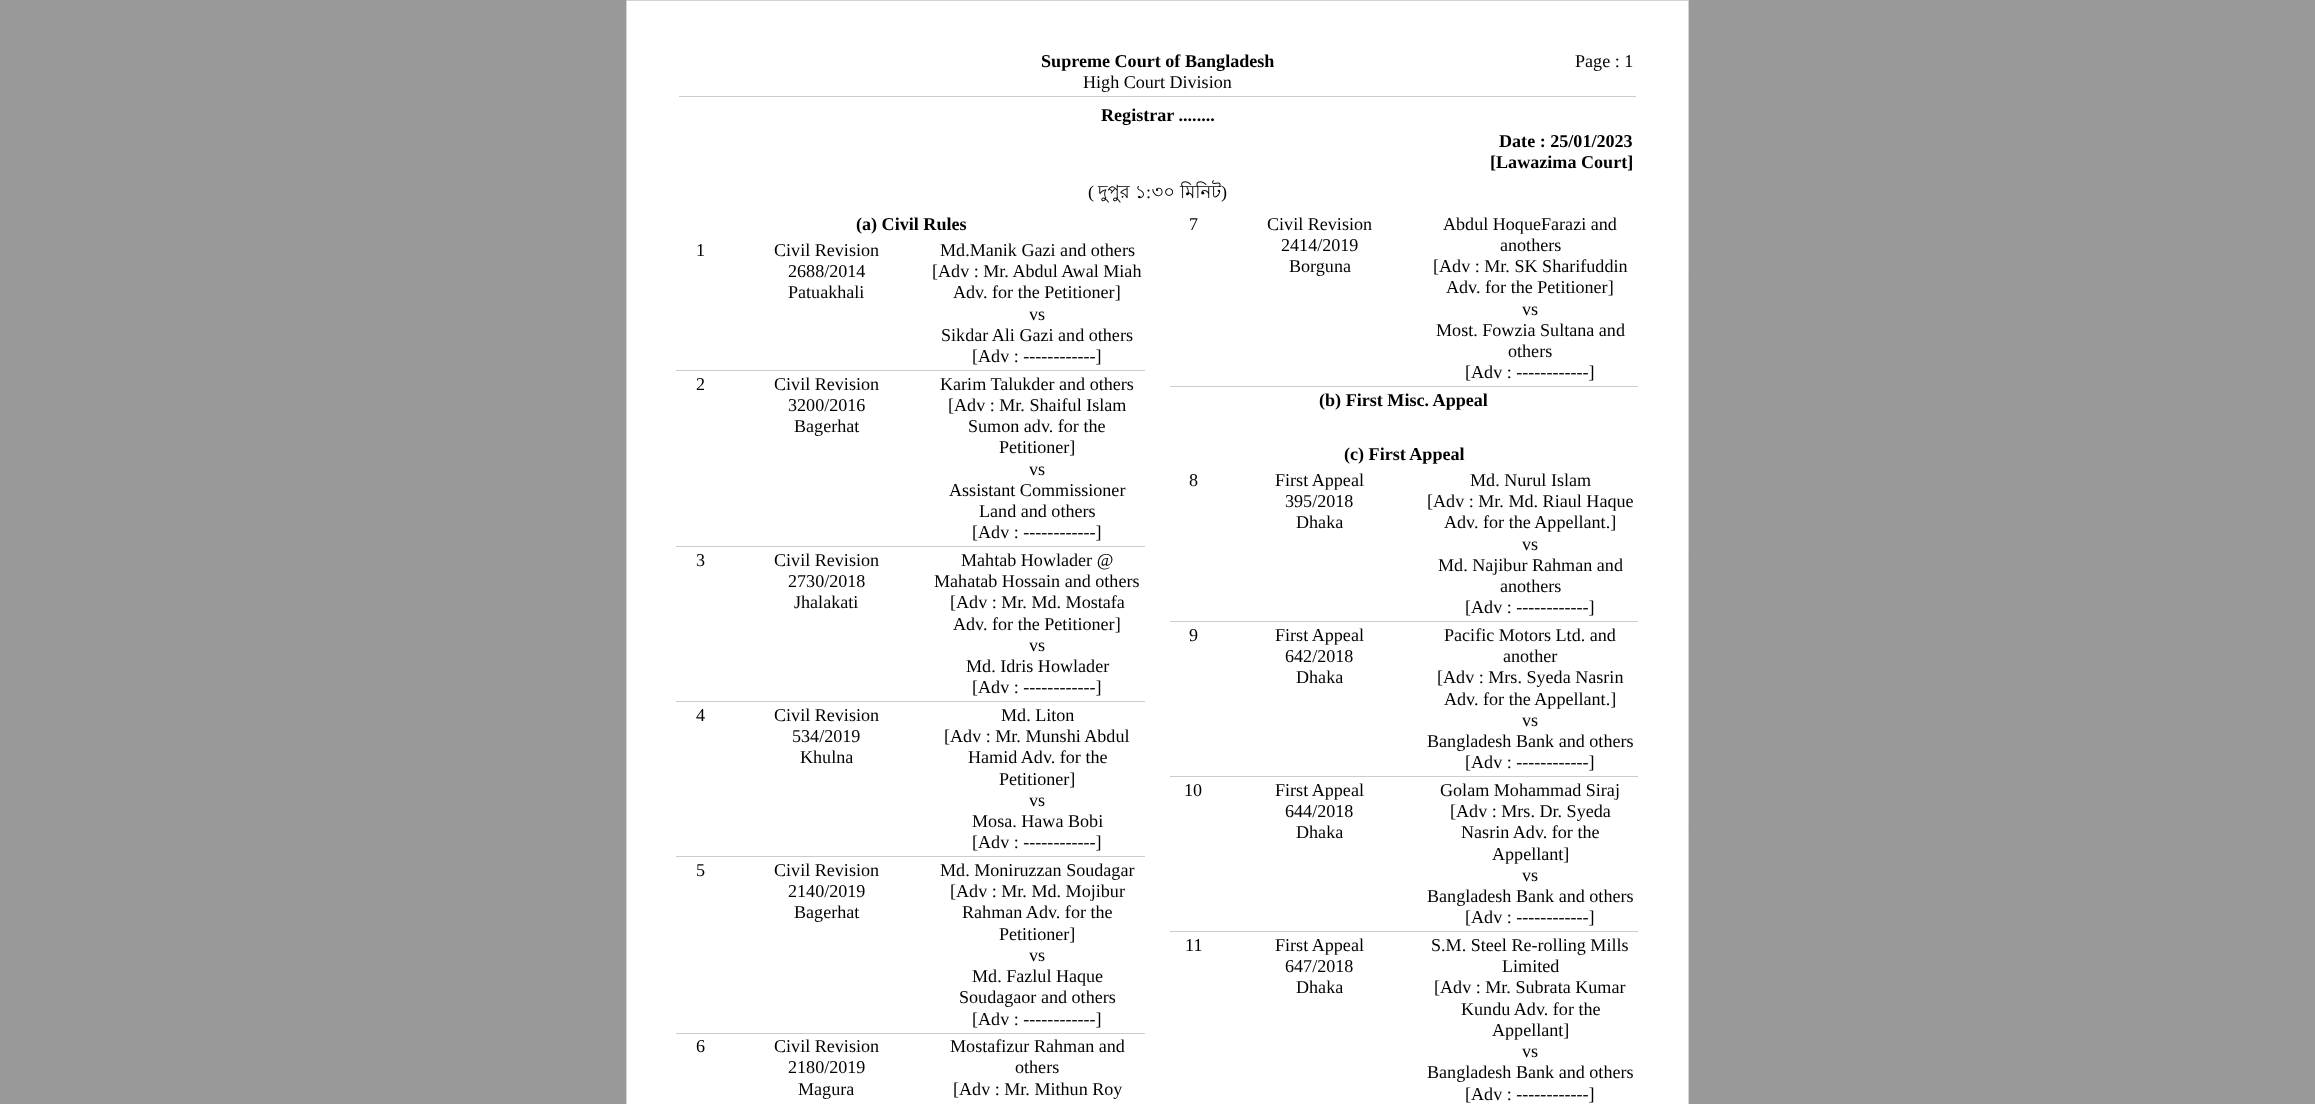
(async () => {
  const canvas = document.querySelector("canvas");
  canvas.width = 2315;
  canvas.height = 1104;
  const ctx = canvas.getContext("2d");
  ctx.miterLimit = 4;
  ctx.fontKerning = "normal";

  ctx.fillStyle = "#999999";
  ctx.fillRect(0, 0, 2315, 1104);
  ctx.fillStyle = "#ffffff";
  ctx.beginPath();
  ctx.rect(626.5, 0.5, 1062, 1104);
  ctx.fill();
  ctx.strokeStyle = "#d3d3d3";
  ctx.stroke();
  for (const [x, y, w, h, color] of [
    [679, 96, 957, 1, "#cccccc"],
    [1170, 386, 468, 1, "#cccccc"],
    [676, 370, 469, 1, "#cccccc"],
    [676, 546, 469, 1, "#cccccc"],
    [676, 701, 469, 1, "#cccccc"],
    [1170, 621, 468, 1, "#cccccc"],
    [676, 856, 469, 1, "#cccccc"],
    [1170, 776, 468, 1, "#cccccc"],
    [676, 1033, 469, 1, "#cccccc"],
    [1170, 931, 468, 1, "#cccccc"],
  ]) {
    ctx.fillStyle = color;
    ctx.fillRect(x, y, w, h);
  }
  ctx.font = "bold 18.1px Liberation Serif";
  ctx.fillStyle = "#000000";
  ctx.fillText("Supreme Court of Bangladesh", 1041, 67);
  ctx.font = "18.1px Liberation Serif";
  ctx.fillText("High Court Division", 1083, 88);
  ctx.fillText("Page : 1", 1575, 67);
  ctx.font = "bold 18.1px Liberation Serif";
  for (const [text, x, y] of [
    ["Registrar ........", 1101, 121],
    ["Date : 25/01/2023", 1499, 147],
    ["[Lawazima Court]", 1490, 168],
  ]) {
    ctx.fillText(text, x, y);
  }
  ctx.font = "18.1px Liberation Serif";
  ctx.fillText("(", 1088, 198);
  ctx.font = "18.1px Lohit Bengali";
  ctx.fillText("দুপুর ১ ৩০ মিনিট", 1098, 198);
  ctx.font = "18.1px Liberation Serif";
  ctx.fillText(")", 1221, 198);
  ctx.fillText(":", 1146, 198);
  ctx.font = "bold 18.1px Liberation Serif";
  ctx.fillText("(a) Civil Rules", 856, 230);
  ctx.font = "18.1px Liberation Serif";
  for (const [text, x, y] of [
    ["7", 1189, 230],
    ["Civil Revision", 1267, 230],
    ["2414/2019", 1281, 251],
    ["Borguna", 1289, 272],
    ["Abdul HoqueFarazi and", 1443, 230],
    ["anothers", 1500, 251],
    ["[Adv : Mr. SK Sharifuddin", 1433, 272],
    ["Adv. for the Petitioner]", 1446, 293],
    ["vs", 1522, 315],
    ["Most. Fowzia Sultana and", 1436, 336],
    ["others", 1508, 357],
    ["[Adv : ------------]", 1465, 378],
    ["1", 696, 256],
    ["Civil Revision", 774, 256],
    ["2688/2014", 788, 277],
    ["Patuakhali", 788, 298],
    ["Md.Manik Gazi and others", 940, 256],
    ["[Adv : Mr. Abdul Awal Miah", 932, 277],
    ["Adv. for the Petitioner]", 953, 298],
    ["vs", 1029, 320],
    ["Sikdar Ali Gazi and others", 941, 341],
    ["[Adv : ------------]", 972, 362],
    ["2", 696, 390],
    ["Civil Revision", 774, 390],
    ["3200/2016", 788, 411],
    ["Bagerhat", 794, 432],
    ["Karim Talukder and others", 940, 390],
    ["[Adv : Mr. Shaiful Islam", 948, 411],
    ["Sumon adv. for the", 968, 432],
    ["Petitioner]", 999, 453],
    ["vs", 1029, 475],
    ["Assistant Commissioner", 949, 496],
    ["Land and others", 979, 517],
    ["[Adv : ------------]", 972, 538],
  ]) {
    ctx.fillText(text, x, y);
  }
  ctx.font = "bold 18.1px Liberation Serif";
  ctx.fillText("(b) First Misc. Appeal", 1319, 406);
  ctx.fillText("(c) First Appeal", 1344, 460);
  ctx.font = "18.1px Liberation Serif";
  for (const [text, x, y] of [
    ["3", 696, 566],
    ["Civil Revision", 774, 566],
    ["2730/2018", 788, 587],
    ["Jhalakati", 794, 608],
    ["Mahtab Howlader @", 961, 566],
    ["Mahatab Hossain and others", 934, 587],
    ["[Adv : Mr. Md. Mostafa", 950, 608],
    ["Adv. for the Petitioner]", 953, 630],
    ["vs", 1029, 651],
    ["Md. Idris Howlader", 966, 672],
    ["[Adv : ------------]", 972, 693],
    ["8", 1189, 486],
    ["First Appeal", 1275, 486],
    ["395/2018", 1285, 507],
    ["Dhaka", 1296, 528],
    ["Md. Nurul Islam", 1470, 486],
    ["[Adv : Mr. Md. Riaul Haque", 1427, 507],
    ["Adv. for the Appellant.]", 1444, 528],
    ["vs", 1522, 550],
    ["Md. Najibur Rahman and", 1438, 571],
    ["anothers", 1500, 592],
    ["[Adv : ------------]", 1465, 613],
    ["4", 696, 721],
    ["Civil Revision", 774, 721],
    ["534/2019", 792, 742],
    ["Khulna", 800, 763],
    ["Md. Liton", 1001, 721],
    ["[Adv : Mr. Munshi Abdul", 944, 742],
    ["Hamid Adv. for the", 968, 763],
    ["Petitioner]", 999, 785],
    ["vs", 1029, 806],
    ["Mosa. Hawa Bobi", 972, 827],
    ["[Adv : ------------]", 972, 848],
    ["9", 1189, 641],
    ["First Appeal", 1275, 641],
    ["642/2018", 1285, 662],
    ["Dhaka", 1296, 683],
    ["Pacific Motors Ltd. and", 1444, 641],
    ["another", 1503, 662],
    ["[Adv : Mrs. Syeda Nasrin", 1437, 683],
    ["Adv. for the Appellant.]", 1444, 705],
    ["vs", 1522, 726],
    ["Bangladesh Bank and others", 1427, 747],
    ["[Adv : ------------]", 1465, 768],
    ["5", 696, 876],
    ["Civil Revision", 774, 876],
    ["2140/2019", 788, 897],
    ["Bagerhat", 794, 918],
    ["Md. Moniruzzan Soudagar", 940, 876],
    ["[Adv : Mr. Md. Mojibur", 950, 897],
    ["Rahman Adv. for the", 962, 918],
    ["Petitioner]", 999, 940],
    ["vs", 1029, 961],
    ["Md. Fazlul Haque", 972, 982],
    ["Soudagaor and others", 959, 1003],
    ["[Adv : ------------]", 972, 1025],
    ["10", 1184, 796],
    ["First Appeal", 1275, 796],
    ["644/2018", 1285, 817],
    ["Dhaka", 1296, 838],
    ["Golam Mohammad Siraj", 1440, 796],
    ["[Adv : Mrs. Dr. Syeda", 1450, 817],
    ["Nasrin Adv. for the", 1461, 838],
    ["Appellant]", 1492, 860],
    ["vs", 1522, 881],
    ["Bangladesh Bank and others", 1427, 902],
    ["[Adv : ------------]", 1465, 923],
    ["6", 696, 1052],
    ["Civil Revision", 774, 1052],
    ["2180/2019", 788, 1073],
    ["Magura", 798, 1095],
    ["Mostafizur Rahman and", 950, 1052],
    ["others", 1015, 1073],
    ["[Adv : Mr. Mithun Roy", 953, 1095],
    ["11", 1185, 951],
    ["First Appeal", 1275, 951],
    ["647/2018", 1285, 972],
    ["Dhaka", 1296, 993],
    ["S.M. Steel Re-rolling Mills", 1431, 951],
    ["Limited", 1502, 972],
    ["[Adv : Mr. Subrata Kumar", 1434, 993],
    ["Kundu Adv. for the", 1461, 1015],
    ["Appellant]", 1492, 1036],
    ["vs", 1522, 1057],
    ["Bangladesh Bank and others", 1427, 1078],
    ["[Adv : ------------]", 1465, 1100],
  ]) {
    ctx.fillText(text, x, y);
  }
})();
